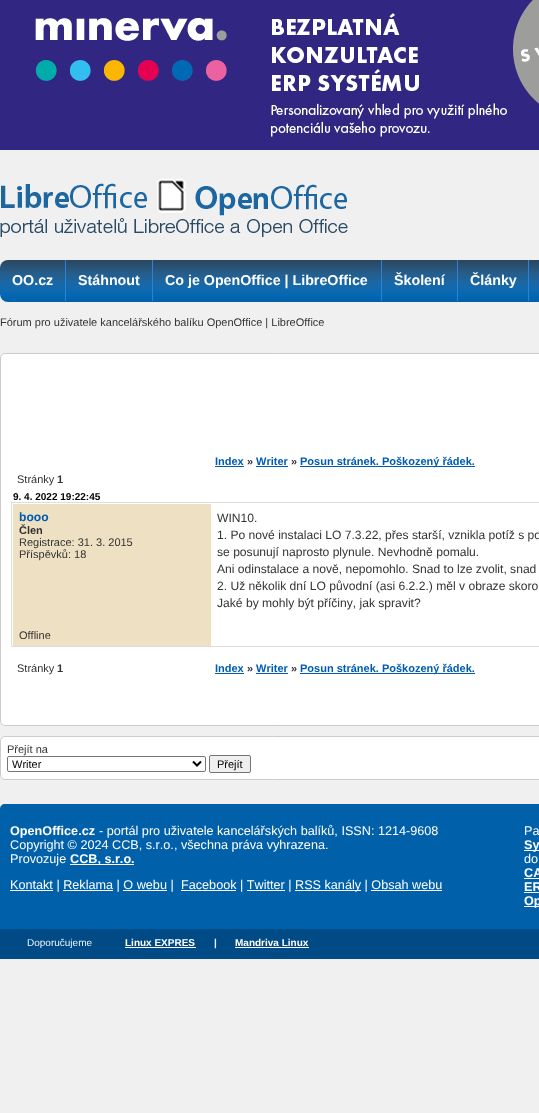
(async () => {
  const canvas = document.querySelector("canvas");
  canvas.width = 539;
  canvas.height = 1113;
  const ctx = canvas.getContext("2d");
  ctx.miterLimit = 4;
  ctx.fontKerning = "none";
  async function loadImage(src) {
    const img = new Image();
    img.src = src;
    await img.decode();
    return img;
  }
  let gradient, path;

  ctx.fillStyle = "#f0f0f0";
  ctx.fillRect(0, 0, 539, 1113);
  ctx.drawImage(await loadImage("img/1.png"), 0, 0, 539, 150);
  ctx.drawImage(await loadImage("img/2.png"), 0, 178, 348, 59);
  gradient = ctx.createLinearGradient(504, 260, 504, 302);
  gradient.addColorStop(0, "#2a475f");
  gradient.addColorStop(0.1, "#2a4d6a");
  gradient.addColorStop(0.3, "#265c88");
  gradient.addColorStop(0.53, "#1b67a4");
  gradient.addColorStop(0.68, "#1269ae");
  gradient.addColorStop(0.83, "#0567b0");
  gradient.addColorStop(1, "#0061ac");
  ctx.fillStyle = gradient;
  ctx.beginPath();
  ctx.roundRect(0, 260, 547, 42, 8);
  ctx.fill();
  for (const [x, y, w, h, color] of [
    [65, 260, 1, 41, "#2983d6"],
    [152, 260, 1, 41, "#2983d6"],
    [381, 260, 1, 41, "#2983d6"],
    [457, 260, 1, 41, "#2983d6"],
    [528, 260, 1, 41, "#2983d6"],
  ]) {
    ctx.fillStyle = color;
    ctx.fillRect(x, y, w, h);
  }
  ctx.fillStyle = "#ffffff";
  ctx.beginPath();
  ctx.roundRect(0.5, 353.5, 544, 372, 4.5);
  ctx.fill();
  ctx.strokeStyle = "#cccccc";
  ctx.stroke();
  for (const [x, y, w, h, color] of [
    [215, 466, 29, 1, "#005cb1"],
    [256, 466, 32, 1, "#005cb1"],
    [300, 466, 175, 1, "#005cb1"],
  ]) {
    ctx.fillStyle = color;
    ctx.fillRect(x, y, w, h);
  }
  ctx.strokeStyle = "#dddddd";
  ctx.strokeRect(11.5, 502.5, 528, 144);
  for (const [x, y, w, h, color] of [
    [13, 504, 198, 142, "#eee0c3"],
    [215, 673, 29, 1, "#005cb1"],
    [256, 673, 32, 1, "#005cb1"],
    [300, 673, 175, 1, "#005cb1"],
  ]) {
    ctx.fillStyle = color;
    ctx.fillRect(x, y, w, h);
  }
  ctx.fillStyle = "#ffffff";
  ctx.beginPath();
  ctx.roundRect(0.5, 736.5, 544, 43, 4.5);
  ctx.fill();
  ctx.strokeStyle = "#cccccc";
  ctx.stroke();
  ctx.beginPath();
  ctx.roundRect(7.5, 756.5, 198, 15, 1.5);
  ctx.strokeStyle = "#767676";
  ctx.stroke();
  path = new Path2D("M193 761.5L197 765.5L201 761.5");
  ctx.strokeStyle = "#000000";
  ctx.lineWidth = 2;
  ctx.stroke(path);
  ctx.fillStyle = "#efefef";
  ctx.beginPath();
  ctx.roundRect(209.5, 755.5, 41, 17, 1.5);
  ctx.fill();
  ctx.strokeStyle = "#767676";
  ctx.lineWidth = 1;
  ctx.stroke();
  ctx.fillStyle = "#0060a9";
  path = new Path2D("M5 804H539C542 804 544 806 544 809V959H0V809C0 806 2 804 5 804Z");
  ctx.fill(path);
  for (const [x, y, w, h, color] of [
    [0, 929, 539, 30, "#004b85"],
    [70, 864, 64, 1, "#ffffff"],
    [10, 890, 43, 1, "#ffffff"],
    [181, 890, 55, 1, "#ffffff"],
    [295, 890, 66, 1, "#ffffff"],
    [63, 890, 50, 1, "#ffffff"],
    [123, 890, 44, 1, "#ffffff"],
    [247, 890, 38, 1, "#ffffff"],
    [371, 890, 71, 1, "#ffffff"],
    [524, 850, 15, 1, "#ffffff"],
    [524, 878, 15, 1, "#ffffff"],
    [524, 892, 15, 1, "#ffffff"],
    [524, 906, 15, 1, "#ffffff"],
    [125, 947, 71, 1, "#ffffff"],
    [235, 947, 74, 1, "#ffffff"],
  ]) {
    ctx.fillStyle = color;
    ctx.fillRect(x, y, w, h);
  }
  ctx.font = "bold 14.25px Liberation Sans";
  for (const [text, x, y] of [
    ["OO.cz", 12, 285],
    ["Stáhnout", 78, 285],
    ["Co je OpenOffice | LibreOffice", 165, 285],
    ["Školení", 394, 285],
    ["Články", 470, 285],
  ]) {
    ctx.fillText(text, x, y);
  }
  ctx.font = "11px Liberation Sans";
  ctx.fillStyle = "#333333";
  ctx.fillText("Fórum pro uživatele kancelářského balíku OpenOffice | LibreOffice", 0, 326);
  ctx.font = "bold 11px Liberation Sans";
  ctx.fillStyle = "#005cb1";
  ctx.fillText("Index", 215, 465);
  ctx.fillStyle = "#333333";
  ctx.fillText("»", 247, 465);
  ctx.fillStyle = "#005cb1";
  ctx.fillText("Writer", 256, 465);
  ctx.fillStyle = "#333333";
  ctx.fillText("»", 291, 465);
  ctx.fillStyle = "#005cb1";
  ctx.fillText("Posun stránek. Poškozený řádek.", 300, 465);
  ctx.font = "11px Liberation Sans";
  ctx.fillStyle = "#333333";
  ctx.fillText("Stránky", 17, 483);
  ctx.font = "bold 11px Liberation Sans";
  ctx.fillText("1", 57, 483);
  ctx.font = "bold 10px Liberation Sans";
  ctx.fillStyle = "#000000";
  ctx.fillText("9. 4. 2022 19:22:45", 13, 500);
  ctx.font = "bold 12.1px Liberation Sans";
  ctx.fillStyle = "#005cb1";
  ctx.fillText("booo", 19, 521);
  ctx.font = "bold 11px Liberation Sans";
  ctx.fillStyle = "#333333";
  ctx.fillText("Člen", 19, 534);
  ctx.font = "11px Liberation Sans";
  ctx.fillText("Registrace: 31. 3. 2015", 19, 546);
  ctx.fillText("Příspěvků: 18", 19, 558);
  ctx.font = "12.1px Liberation Sans";
  for (const [text, x, y] of [
    ["WIN10.", 217, 522],
    ["1. Po nové instalaci LO 7.3.22, přes starší, vznikla potíž s po", 217, 539],
    ["se posunují naprosto plynule. Nevhodně pomalu.", 217, 556],
    ["Ani odinstalace a nově, nepomohlo. Snad to lze zvolit, snad", 217, 573],
    ["2. Už několik dní LO původní (asi 6.2.2.) měl v obraze skoro", 217, 590],
    ["Jaké by mohly být příčiny, jak spravit?", 217, 607],
  ]) {
    ctx.fillText(text, x, y);
  }
  ctx.font = "11px Liberation Sans";
  ctx.fillText("Offline", 19, 639);
  ctx.fillText("Stránky", 17, 672);
  ctx.font = "bold 11px Liberation Sans";
  ctx.fillText("1", 57, 672);
  ctx.fillStyle = "#005cb1";
  ctx.fillText("Index", 215, 672);
  ctx.fillStyle = "#333333";
  ctx.fillText("»", 247, 672);
  ctx.fillStyle = "#005cb1";
  ctx.fillText("Writer", 256, 672);
  ctx.fillStyle = "#333333";
  ctx.fillText("»", 291, 672);
  ctx.fillStyle = "#005cb1";
  ctx.fillText("Posun stránek. Poškozený řádek.", 300, 672);
  ctx.font = "11px Liberation Sans";
  ctx.fillStyle = "#333333";
  ctx.fillText("Přejít na", 7, 753);
  ctx.fillStyle = "#000000";
  ctx.fillText("Writer", 12, 768);
  ctx.fillText("Přejít", 217, 768);
  ctx.font = "bold 12.65px Liberation Sans";
  ctx.fillStyle = "#ffffff";
  ctx.fillText("OpenOffice.cz", 10, 835);
  ctx.font = "12.65px Liberation Sans";
  for (const [text, x, y] of [
    ["- portál pro uživatele kancelářských balíků, ISSN: 1214-9608", 99, 835],
    ["Copyright © 2024 CCB, s.r.o., všechna práva vyhrazena.", 10, 849],
    ["Provozuje", 10, 863],
  ]) {
    ctx.fillText(text, x, y);
  }
  ctx.font = "bold 12.65px Liberation Sans";
  ctx.fillText("CCB, s.r.o.", 70, 863);
  ctx.font = "12.65px Liberation Sans";
  for (const [text, x, y] of [
    ["Kontakt | Reklama | O webu |", 10, 889],
    ["Facebook | Twitter |", 181, 889],
    ["RSS kanály | Obsah webu", 295, 889],
    ["Pa", 524, 835],
  ]) {
    ctx.fillText(text, x, y);
  }
  ctx.font = "bold 12.65px Liberation Sans";
  ctx.fillText("Sy", 524, 849);
  ctx.font = "12.65px Liberation Sans";
  ctx.fillText("do", 524, 863);
  ctx.font = "bold 12.65px Liberation Sans";
  for (const [text, x, y] of [
    ["CA", 524, 877],
    ["ER", 524, 891],
    ["Op", 524, 905],
  ]) {
    ctx.fillText(text, x, y);
  }
  ctx.font = "10px Liberation Sans";
  ctx.fillStyle = "#e7f5fe";
  ctx.fillText("Doporučujeme", 27, 946);
  ctx.font = "bold 10px Liberation Sans";
  ctx.fillStyle = "#ffffff";
  ctx.fillText("Linux EXPRES", 125, 946);
  ctx.fillStyle = "#e7f5fe";
  ctx.fillText("|", 214, 946);
  ctx.fillStyle = "#ffffff";
  ctx.fillText("Mandriva Linux", 235, 946);
})();
